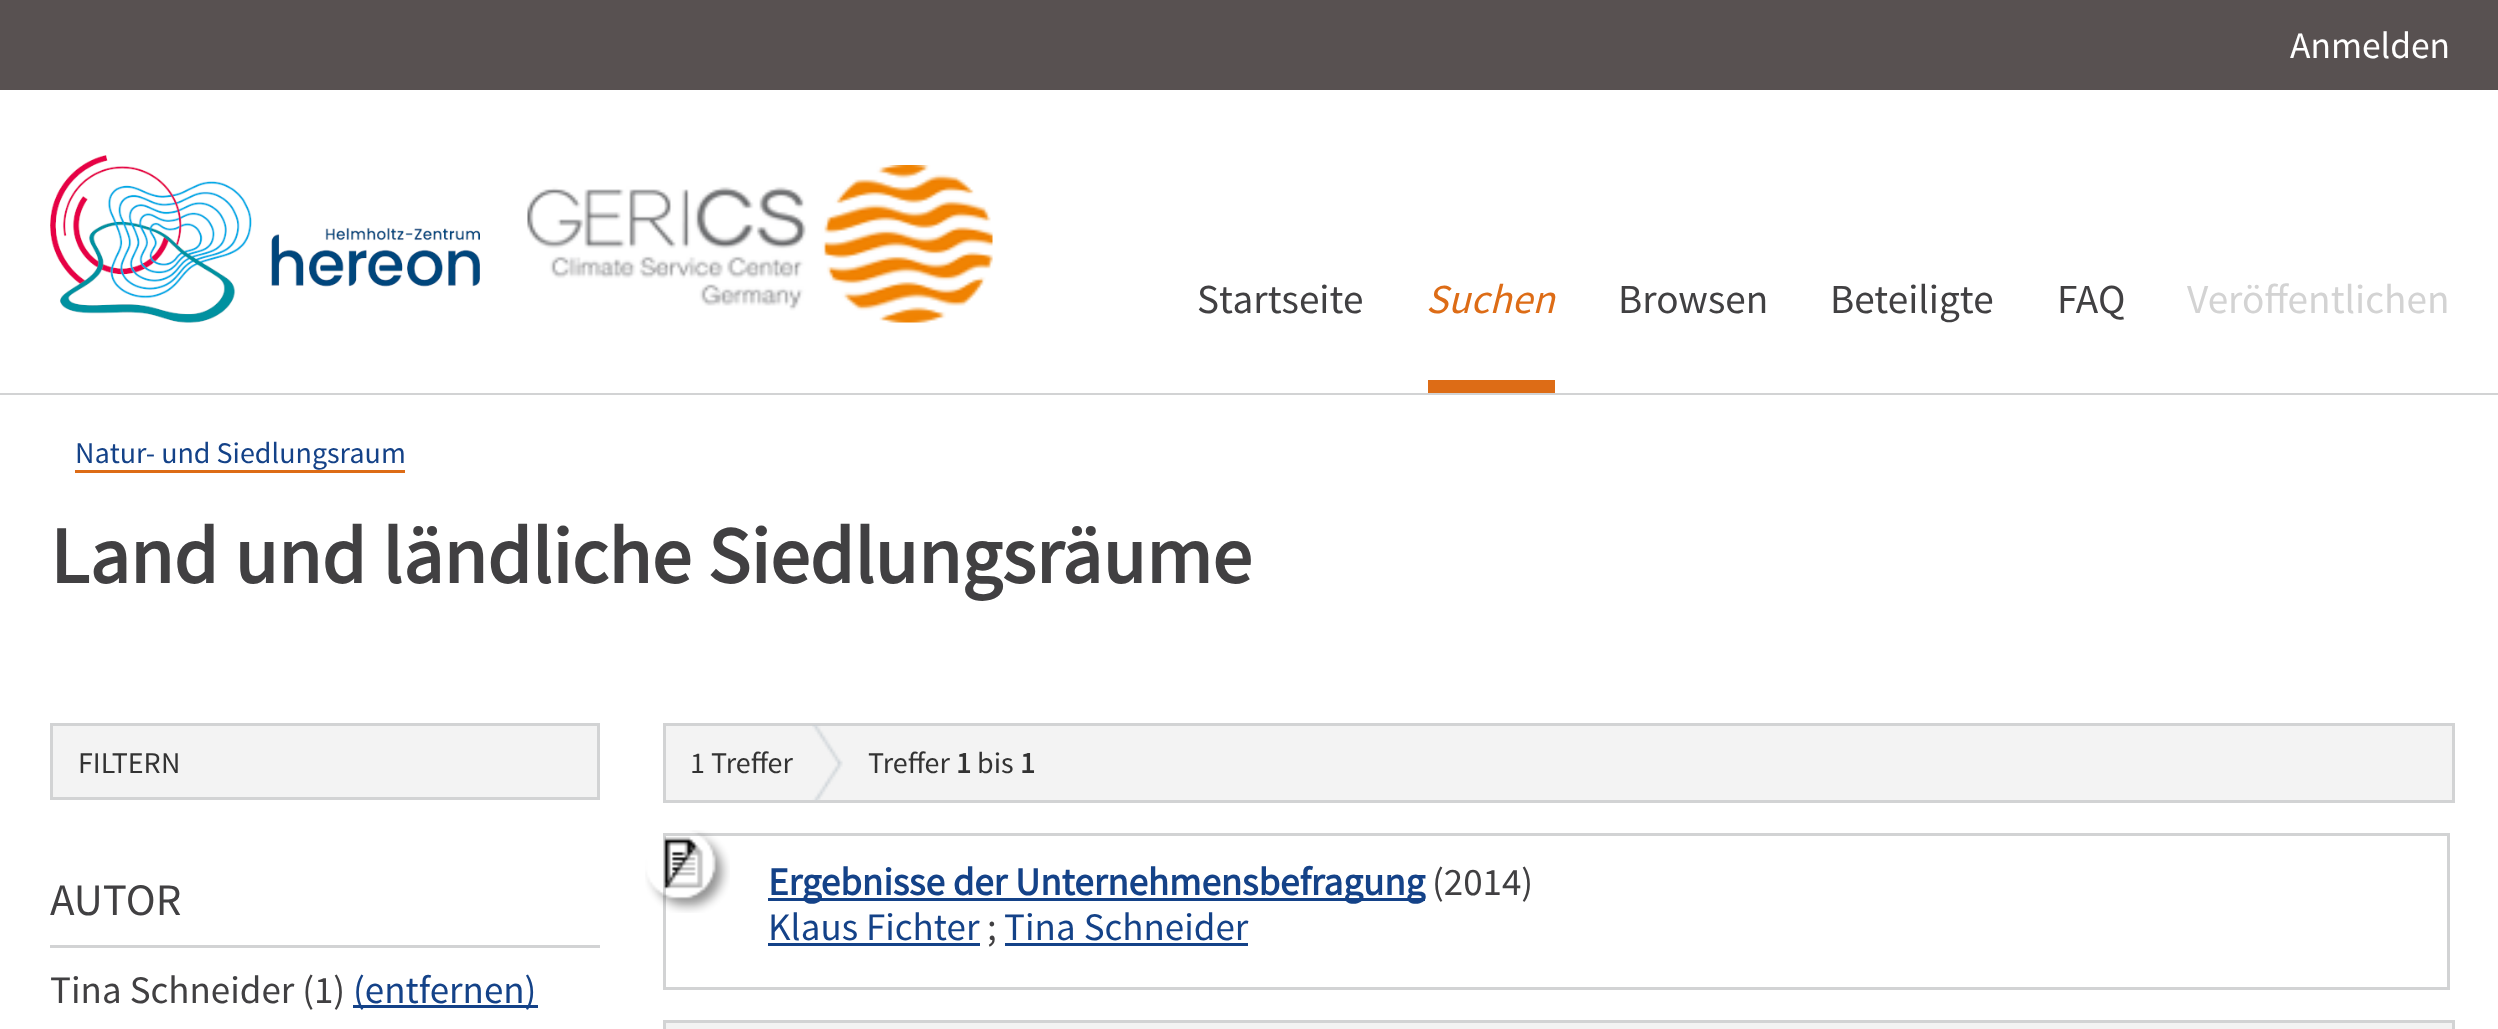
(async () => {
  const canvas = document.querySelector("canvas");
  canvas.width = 2498;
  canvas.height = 1029;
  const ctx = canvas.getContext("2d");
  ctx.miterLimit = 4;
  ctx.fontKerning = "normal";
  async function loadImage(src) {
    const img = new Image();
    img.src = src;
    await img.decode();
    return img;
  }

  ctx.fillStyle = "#ffffff";
  ctx.fillRect(0, 0, 2498, 1029);
  ctx.fillStyle = "#585151";
  ctx.fillRect(0, 0, 2498, 90);
  ctx.fillStyle = "#d2d3d4";
  ctx.fillRect(0, 393, 2498, 2);
  ctx.drawImage(await loadImage("img/1.png"), 50, 155, 430, 168);
  ctx.drawImage(await loadImage("img/2.png"), 527, 165, 466, 158);
  ctx.fillStyle = "#dd6c16";
  ctx.fillRect(1428, 380, 127, 13);
  ctx.fillRect(75, 470, 330, 3);
  ctx.fillStyle = "#f3f3f3";
  ctx.beginPath();
  ctx.rect(51.5, 724.5, 547, 74);
  ctx.fill();
  ctx.strokeStyle = "#d2d3d4";
  ctx.lineWidth = 3;
  ctx.stroke();
  ctx.fillStyle = "#d2d3d4";
  ctx.fillRect(50, 945, 550, 3);
  ctx.fillStyle = "#144288";
  ctx.fillRect(353, 1005, 185, 3);
  ctx.fillStyle = "#f3f3f3";
  ctx.beginPath();
  ctx.rect(664.5, 724.5, 1789, 77);
  ctx.fill();
  ctx.stroke();
  ctx.drawImage(await loadImage("img/3.png"), 812, 725, 31, 75);
  ctx.strokeRect(664.5, 834.5, 1784, 154);
  ctx.drawImage(await loadImage("img/4.png"), 645, 830, 85, 83);
  for (const [x, y, w, h, color] of [
    [768, 898, 657, 3, "#144288"],
    [768, 943, 212, 3, "#144288"],
    [1005, 943, 243, 3, "#144288"],
  ]) {
    ctx.fillStyle = color;
    ctx.fillRect(x, y, w, h);
  }
  ctx.fillStyle = "#f3f3f3";
  ctx.beginPath();
  ctx.rect(664.5, 1021.5, 1789, 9);
  ctx.fill();
  ctx.stroke();
  ctx.font = "37.5px Source Sans Pro";
  ctx.fillStyle = "#ffffff";
  ctx.fillText("Anmelden", 2290, 58);
  ctx.font = "41.25px Source Sans Pro";
  ctx.fillStyle = "#414042";
  ctx.fillText("Startseite", 1197, 313);
  ctx.font = "italic 41.25px Source Sans Pro";
  ctx.fillStyle = "#dd6c16";
  ctx.fillText("Suchen", 1426, 313);
  ctx.font = "41.25px Source Sans Pro";
  ctx.fillStyle = "#414042";
  for (const [text, x, y] of [
    ["Browsen", 1618, 313],
    ["Beteiligte", 1830, 313],
    ["FAQ", 2057, 313],
  ]) {
    ctx.fillText(text, x, y);
  }
  ctx.fillStyle = "#d3d3d3";
  ctx.fillText("Veröffentlichen", 2187, 313);
  ctx.font = "30px Source Sans Pro";
  ctx.fillStyle = "#144288";
  ctx.fillText("Natur- und Siedlungsraum", 75, 463);
  ctx.font = "bold 80px Source Sans Pro";
  ctx.fillStyle = "#414042";
  ctx.fillText("Land und ländliche Siedlungsräume", 50, 583);
  ctx.font = "30px Source Sans Pro";
  ctx.fillStyle = "#333333";
  ctx.fillText("FILTERN", 78, 773);
  ctx.font = "45px Source Sans Pro";
  ctx.fillStyle = "#414042";
  ctx.fillText("AUTOR", 50, 915);
  ctx.font = "39px Source Sans Pro";
  ctx.fillText("Tina Schneider (1)", 50, 1003);
  ctx.fillStyle = "#144288";
  ctx.fillText("(entfernen)", 353, 1003);
  ctx.font = "30px Source Sans Pro";
  ctx.fillStyle = "#333333";
  ctx.fillText("1 Treffer", 690, 773);
  ctx.fillText("Treffer", 868, 773);
  ctx.font = "bold 30px Source Sans Pro";
  ctx.fillText("1", 956, 773);
  ctx.font = "30px Source Sans Pro";
  ctx.fillText("bis", 977, 773);
  ctx.font = "bold 30px Source Sans Pro";
  ctx.fillText("1", 1020, 773);
  ctx.font = "bold 39px Source Sans Pro";
  ctx.fillStyle = "#144288";
  ctx.fillText("Ergebnisse der Unternehmensbefragung", 768, 895);
  ctx.font = "39px Source Sans Pro";
  ctx.fillStyle = "#414042";
  ctx.fillText("(2014)", 1432, 895);
  ctx.fillStyle = "#144288";
  ctx.fillText("Klaus Fichter", 768, 940);
  ctx.fillStyle = "#414042";
  ctx.fillText(";", 987, 940);
  ctx.fillStyle = "#144288";
  ctx.fillText("Tina Schneider", 1004, 940);
})();
